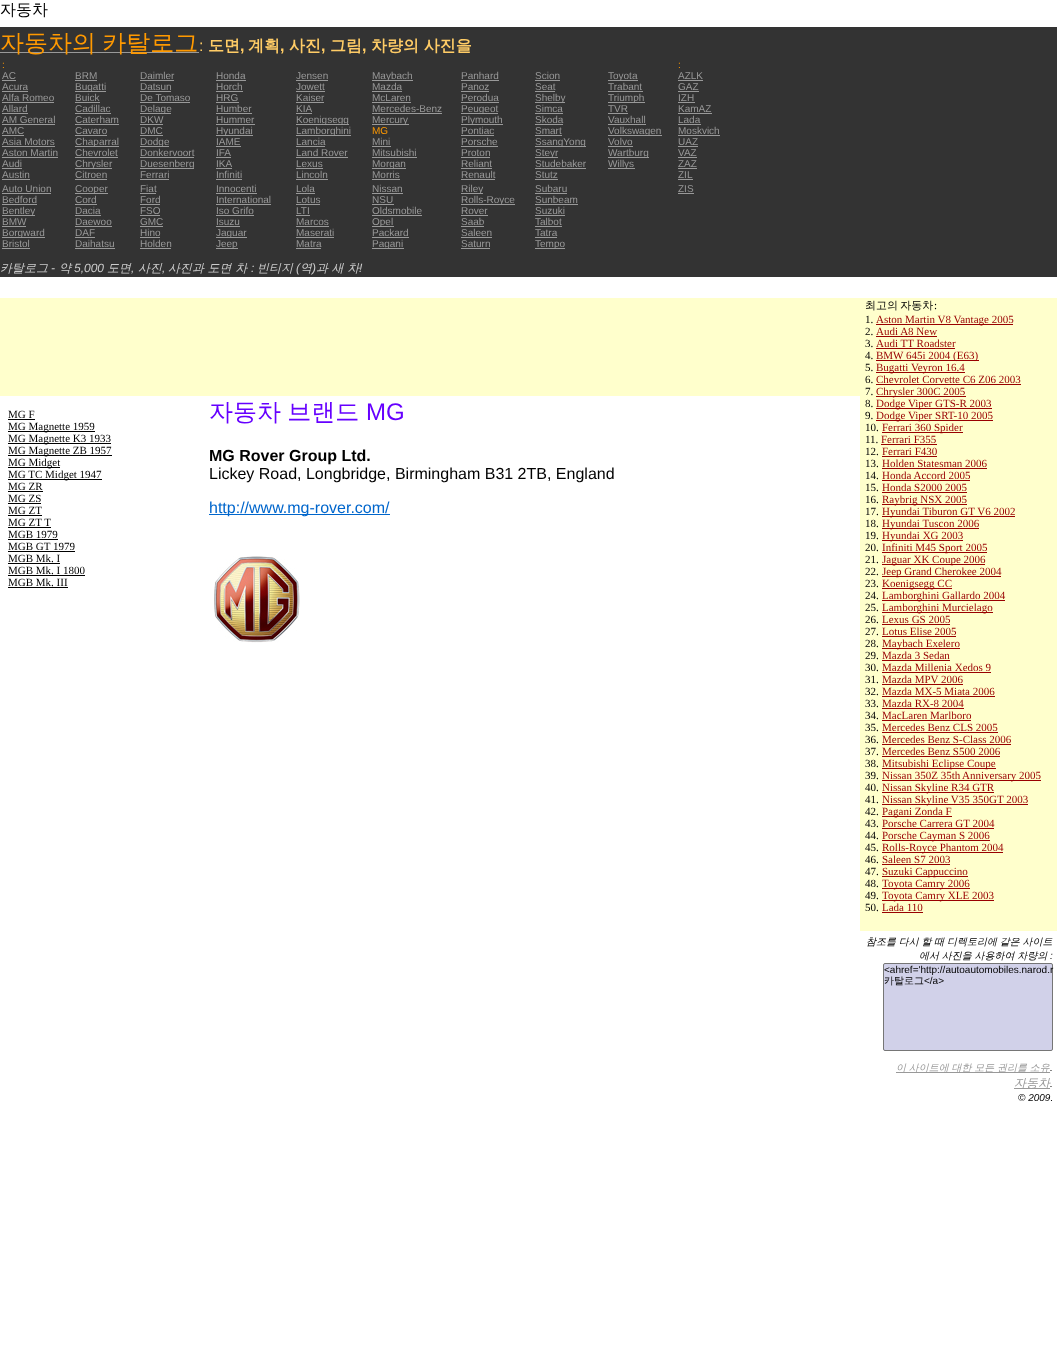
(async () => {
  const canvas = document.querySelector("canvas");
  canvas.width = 1057;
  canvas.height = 1358;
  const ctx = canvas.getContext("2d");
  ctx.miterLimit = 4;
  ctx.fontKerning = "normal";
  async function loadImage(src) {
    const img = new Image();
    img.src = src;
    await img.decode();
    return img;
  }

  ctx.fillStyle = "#ffffff";
  ctx.fillRect(0, 0, 1057, 1358);
  for (const [x, y, w, h, color] of [
    [0, 27, 1057, 250, "#333333"],
    [0, 52, 199, 1, "#999999"],
    [2, 80, 14, 1, "#999999"],
    [75, 80, 22, 1, "#999999"],
    [140, 80, 34, 1, "#999999"],
    [216, 80, 30, 1, "#999999"],
    [296, 80, 32, 1, "#999999"],
    [372, 80, 41, 1, "#999999"],
    [461, 80, 38, 1, "#999999"],
    [535, 80, 25, 1, "#999999"],
    [608, 80, 30, 1, "#999999"],
    [678, 80, 25, 1, "#999999"],
    [2, 91, 26, 1, "#999999"],
    [75, 91, 31, 1, "#999999"],
    [140, 91, 31, 1, "#999999"],
    [216, 91, 27, 1, "#999999"],
    [296, 91, 29, 1, "#999999"],
    [372, 91, 30, 1, "#999999"],
    [461, 91, 28, 1, "#999999"],
    [535, 91, 20, 1, "#999999"],
    [608, 91, 35, 1, "#999999"],
    [678, 91, 21, 1, "#999999"],
    [2, 102, 52, 1, "#999999"],
    [75, 102, 25, 1, "#999999"],
    [140, 102, 50, 1, "#999999"],
    [216, 102, 23, 1, "#999999"],
    [296, 102, 28, 1, "#999999"],
    [372, 102, 39, 1, "#999999"],
    [461, 102, 38, 1, "#999999"],
    [535, 102, 30, 1, "#999999"],
    [608, 102, 37, 1, "#999999"],
    [678, 102, 17, 1, "#999999"],
    [2, 113, 26, 1, "#999999"],
    [75, 113, 36, 1, "#999999"],
    [140, 113, 31, 1, "#999999"],
    [216, 113, 36, 1, "#999999"],
    [296, 113, 16, 1, "#999999"],
    [372, 113, 70, 1, "#999999"],
    [461, 113, 37, 1, "#999999"],
    [535, 113, 28, 1, "#999999"],
    [608, 113, 20, 1, "#999999"],
    [678, 113, 34, 1, "#999999"],
    [2, 124, 53, 1, "#999999"],
    [75, 124, 44, 1, "#999999"],
    [140, 124, 23, 1, "#999999"],
    [216, 124, 39, 1, "#999999"],
    [296, 124, 53, 1, "#999999"],
    [372, 124, 37, 1, "#999999"],
    [461, 124, 42, 1, "#999999"],
    [535, 124, 28, 1, "#999999"],
    [608, 124, 38, 1, "#999999"],
    [678, 124, 23, 1, "#999999"],
    [2, 135, 22, 1, "#999999"],
    [75, 135, 32, 1, "#999999"],
    [140, 135, 23, 1, "#999999"],
    [216, 135, 37, 1, "#999999"],
    [296, 135, 55, 1, "#999999"],
    [461, 135, 33, 1, "#999999"],
    [535, 135, 27, 1, "#999999"],
    [608, 135, 54, 1, "#999999"],
    [678, 135, 42, 1, "#999999"],
    [2, 146, 53, 1, "#999999"],
    [75, 146, 44, 1, "#999999"],
    [140, 146, 29, 1, "#999999"],
    [216, 146, 25, 1, "#999999"],
    [296, 146, 29, 1, "#999999"],
    [372, 146, 19, 1, "#999999"],
    [461, 146, 37, 1, "#999999"],
    [535, 146, 51, 1, "#999999"],
    [608, 146, 25, 1, "#999999"],
    [678, 146, 20, 1, "#999999"],
    [2, 157, 56, 1, "#999999"],
    [75, 157, 43, 1, "#999999"],
    [140, 157, 54, 1, "#999999"],
    [216, 157, 15, 1, "#999999"],
    [296, 157, 52, 1, "#999999"],
    [372, 157, 45, 1, "#999999"],
    [461, 157, 29, 1, "#999999"],
    [535, 157, 23, 1, "#999999"],
    [608, 157, 41, 1, "#999999"],
    [678, 157, 19, 1, "#999999"],
    [2, 168, 20, 1, "#999999"],
    [75, 168, 37, 1, "#999999"],
    [140, 168, 54, 1, "#999999"],
    [216, 168, 16, 1, "#999999"],
    [296, 168, 27, 1, "#999999"],
    [372, 168, 34, 1, "#999999"],
    [461, 168, 31, 1, "#999999"],
    [535, 168, 51, 1, "#999999"],
    [608, 168, 27, 1, "#999999"],
    [678, 168, 19, 1, "#999999"],
    [2, 179, 28, 1, "#999999"],
    [75, 179, 32, 1, "#999999"],
    [140, 179, 29, 1, "#999999"],
    [216, 179, 26, 1, "#999999"],
    [296, 179, 32, 1, "#999999"],
    [372, 179, 28, 1, "#999999"],
    [461, 179, 34, 1, "#999999"],
    [535, 179, 23, 1, "#999999"],
    [678, 179, 15, 1, "#999999"],
    [2, 193, 49, 1, "#999999"],
    [75, 193, 33, 1, "#999999"],
    [140, 193, 16, 1, "#999999"],
    [216, 193, 41, 1, "#999999"],
    [296, 193, 19, 1, "#999999"],
    [372, 193, 31, 1, "#999999"],
    [461, 193, 22, 1, "#999999"],
    [535, 193, 32, 1, "#999999"],
    [678, 193, 16, 1, "#999999"],
    [2, 204, 35, 1, "#999999"],
    [75, 204, 22, 1, "#999999"],
    [140, 204, 20, 1, "#999999"],
    [216, 204, 55, 1, "#999999"],
    [296, 204, 24, 1, "#999999"],
    [372, 204, 22, 1, "#999999"],
    [461, 204, 54, 1, "#999999"],
    [535, 204, 43, 1, "#999999"],
    [2, 215, 33, 1, "#999999"],
    [75, 215, 26, 1, "#999999"],
    [140, 215, 20, 1, "#999999"],
    [216, 215, 38, 1, "#999999"],
    [296, 215, 14, 1, "#999999"],
    [372, 215, 50, 1, "#999999"],
    [461, 215, 27, 1, "#999999"],
    [535, 215, 30, 1, "#999999"],
    [2, 226, 24, 1, "#999999"],
    [75, 226, 37, 1, "#999999"],
    [140, 226, 23, 1, "#999999"],
    [216, 226, 24, 1, "#999999"],
    [296, 226, 33, 1, "#999999"],
    [372, 226, 22, 1, "#999999"],
    [461, 226, 23, 1, "#999999"],
    [535, 226, 27, 1, "#999999"],
    [2, 237, 43, 1, "#999999"],
    [75, 237, 20, 1, "#999999"],
    [140, 237, 20, 1, "#999999"],
    [216, 237, 31, 1, "#999999"],
    [296, 237, 38, 1, "#999999"],
    [372, 237, 37, 1, "#999999"],
    [461, 237, 31, 1, "#999999"],
    [535, 237, 22, 1, "#999999"],
    [2, 248, 28, 1, "#999999"],
    [75, 248, 40, 1, "#999999"],
    [140, 248, 31, 1, "#999999"],
    [216, 248, 22, 1, "#999999"],
    [296, 248, 25, 1, "#999999"],
    [372, 248, 32, 1, "#999999"],
    [461, 248, 29, 1, "#999999"],
    [535, 248, 30, 1, "#999999"],
    [8, 419, 27, 1, "#000000"],
    [8, 431, 87, 1, "#000000"],
    [8, 443, 103, 1, "#000000"],
    [8, 455, 104, 1, "#000000"],
    [8, 467, 52, 1, "#000000"],
    [8, 479, 94, 1, "#000000"],
    [8, 491, 35, 1, "#000000"],
    [8, 503, 33, 1, "#000000"],
    [8, 515, 34, 1, "#000000"],
    [8, 527, 43, 1, "#000000"],
    [8, 539, 50, 1, "#000000"],
    [8, 551, 67, 1, "#000000"],
    [8, 563, 52, 1, "#000000"],
    [8, 575, 77, 1, "#000000"],
    [8, 587, 60, 1, "#000000"],
    [209, 514, 181, 1, "#0066cc"],
  ]) {
    ctx.fillStyle = color;
    ctx.fillRect(x, y, w, h);
  }
  ctx.drawImage(await loadImage("img/1.png"), 214, 556, 86, 87);
  for (const [x, y, w, h, color] of [
    [0, 298, 860, 98, "#ffffcc"],
    [860, 298, 197, 633, "#ffffcc"],
    [876, 324, 137, 1, "#990000"],
    [876, 336, 61, 1, "#990000"],
    [876, 348, 79, 1, "#990000"],
    [876, 360, 103, 1, "#990000"],
    [876, 372, 89, 1, "#990000"],
    [876, 384, 145, 1, "#990000"],
    [876, 396, 90, 1, "#990000"],
    [876, 408, 116, 1, "#990000"],
    [876, 420, 117, 1, "#990000"],
    [882, 432, 81, 1, "#990000"],
    [881, 444, 56, 1, "#990000"],
    [882, 456, 55, 1, "#990000"],
    [882, 468, 105, 1, "#990000"],
    [882, 480, 88, 1, "#990000"],
    [882, 492, 85, 1, "#990000"],
    [882, 504, 85, 1, "#990000"],
    [882, 516, 133, 1, "#990000"],
    [882, 528, 97, 1, "#990000"],
    [882, 540, 81, 1, "#990000"],
    [882, 552, 105, 1, "#990000"],
    [882, 564, 103, 1, "#990000"],
    [882, 576, 119, 1, "#990000"],
    [882, 588, 70, 1, "#990000"],
    [882, 600, 123, 1, "#990000"],
    [882, 612, 111, 1, "#990000"],
    [882, 624, 68, 1, "#990000"],
    [882, 636, 74, 1, "#990000"],
    [882, 648, 78, 1, "#990000"],
    [882, 660, 68, 1, "#990000"],
    [882, 672, 109, 1, "#990000"],
    [882, 684, 81, 1, "#990000"],
    [882, 696, 113, 1, "#990000"],
    [882, 708, 82, 1, "#990000"],
    [882, 720, 89, 1, "#990000"],
    [882, 732, 116, 1, "#990000"],
    [882, 744, 129, 1, "#990000"],
    [882, 756, 118, 1, "#990000"],
    [882, 768, 114, 1, "#990000"],
    [882, 780, 159, 1, "#990000"],
    [882, 792, 112, 1, "#990000"],
    [882, 804, 146, 1, "#990000"],
    [882, 816, 70, 1, "#990000"],
    [882, 828, 112, 1, "#990000"],
    [882, 840, 108, 1, "#990000"],
    [882, 852, 121, 1, "#990000"],
    [882, 864, 68, 1, "#990000"],
    [882, 876, 86, 1, "#990000"],
    [882, 888, 88, 1, "#990000"],
    [882, 900, 112, 1, "#990000"],
    [882, 912, 41, 1, "#990000"],
  ]) {
    ctx.fillStyle = color;
    ctx.fillRect(x, y, w, h);
  }
  ctx.fillStyle = "#d1d1e9";
  ctx.beginPath();
  ctx.roundRect(883.5, 963.5, 169, 87, 1.5);
  ctx.fill();
  ctx.strokeStyle = "#767676";
  ctx.stroke();
  ctx.fillStyle = "#999999";
  ctx.fillRect(896, 1072, 154, 1);
  ctx.fillRect(1014, 1088, 36, 1);
  ctx.font = "500 16px WenQuanYi Zen Hei";
  ctx.fillStyle = "#000000";
  ctx.fillText("자동차", 0, 15);
  ctx.wordSpacing = "-1px";
  ctx.font = "500 24px WenQuanYi Zen Hei";
  ctx.fillStyle = "#ff9900";
  ctx.fillText("자동차의 카탈로그", 0, 51);
  ctx.wordSpacing = "0px";
  ctx.font = "16px Liberation Sans";
  ctx.fillStyle = "#ffcc66";
  ctx.fillText(":", 199, 51);
  ctx.font = "bold 16px WenQuanYi Zen Hei";
  ctx.fillText("도면", 208, 51);
  ctx.font = "bold 16px Liberation Sans";
  ctx.fillText(",", 240, 51);
  ctx.font = "bold 16px WenQuanYi Zen Hei";
  ctx.fillText("계획", 248, 51);
  ctx.font = "bold 16px Liberation Sans";
  ctx.fillText(",", 280, 51);
  ctx.font = "bold 16px WenQuanYi Zen Hei";
  ctx.fillText("사진", 289, 51);
  ctx.font = "bold 16px Liberation Sans";
  ctx.fillText(",", 321, 51);
  ctx.font = "bold 16px WenQuanYi Zen Hei";
  ctx.fillText("그림", 330, 51);
  ctx.font = "bold 16px Liberation Sans";
  ctx.fillText(",", 362, 51);
  ctx.font = "bold 16px WenQuanYi Zen Hei";
  ctx.fillText("차량의 사진을", 371, 51);
  ctx.font = "10px Liberation Sans";
  ctx.fillStyle = "#ff9900";
  ctx.fillText(":", 2, 68);
  ctx.fillText(":", 678, 68);
  ctx.fillStyle = "#999999";
  for (const [text, x, y] of [
    ["AC", 2, 79],
    ["BRM", 75, 79],
    ["Daimler", 140, 79],
    ["Honda", 216, 79],
    ["Jensen", 296, 79],
    ["Maybach", 372, 79],
    ["Panhard", 461, 79],
    ["Scion", 535, 79],
    ["Toyota", 608, 79],
    ["AZLK", 678, 79],
    ["Acura", 2, 90],
    ["Bugatti", 75, 90],
    ["Datsun", 140, 90],
    ["Horch", 216, 90],
    ["Jowett", 296, 90],
    ["Mazda", 372, 90],
    ["Panoz", 461, 90],
    ["Seat", 535, 90],
    ["Trabant", 608, 90],
    ["GAZ", 678, 90],
    ["Alfa Romeo", 2, 101],
    ["Buick", 75, 101],
    ["De Tomaso", 140, 101],
    ["HRG", 216, 101],
    ["Kaiser", 296, 101],
    ["McLaren", 372, 101],
    ["Perodua", 461, 101],
    ["Shelby", 535, 101],
    ["Triumph", 608, 101],
    ["IZH", 678, 101],
    ["Allard", 2, 112],
    ["Cadillac", 75, 112],
    ["Delage", 140, 112],
    ["Humber", 216, 112],
    ["KIA", 296, 112],
    ["Mercedes-Benz", 372, 112],
    ["Peugeot", 461, 112],
    ["Simca", 535, 112],
    ["TVR", 608, 112],
    ["KamAZ", 678, 112],
    ["AM General", 2, 123],
    ["Caterham", 75, 123],
    ["DKW", 140, 123],
    ["Hummer", 216, 123],
    ["Koenigsegg", 296, 123],
    ["Mercury", 372, 123],
    ["Plymouth", 461, 123],
    ["Skoda", 535, 123],
    ["Vauxhall", 608, 123],
    ["Lada", 678, 123],
    ["AMC", 2, 134],
    ["Cavaro", 75, 134],
    ["DMC", 140, 134],
    ["Hyundai", 216, 134],
    ["Lamborghini", 296, 134],
  ]) {
    ctx.fillText(text, x, y);
  }
  ctx.fillStyle = "#ff9900";
  ctx.fillText("MG", 372, 134);
  ctx.fillStyle = "#999999";
  for (const [text, x, y] of [
    ["Pontiac", 461, 134],
    ["Smart", 535, 134],
    ["Volkswagen", 608, 134],
    ["Moskvich", 678, 134],
    ["Asia Motors", 2, 145],
    ["Chaparral", 75, 145],
    ["Dodge", 140, 145],
    ["IAME", 216, 145],
    ["Lancia", 296, 145],
    ["Mini", 372, 145],
    ["Porsche", 461, 145],
    ["SsangYong", 535, 145],
    ["Volvo", 608, 145],
    ["UAZ", 678, 145],
    ["Aston Martin", 2, 156],
    ["Chevrolet", 75, 156],
    ["Donkervoort", 140, 156],
    ["IFA", 216, 156],
    ["Land Rover", 296, 156],
    ["Mitsubishi", 372, 156],
    ["Proton", 461, 156],
    ["Steyr", 535, 156],
    ["Wartburg", 608, 156],
    ["VAZ", 678, 156],
    ["Audi", 2, 167],
    ["Chrysler", 75, 167],
    ["Duesenberg", 140, 167],
    ["IKA", 216, 167],
    ["Lexus", 296, 167],
    ["Morgan", 372, 167],
    ["Reliant", 461, 167],
    ["Studebaker", 535, 167],
    ["Willys", 608, 167],
    ["ZAZ", 678, 167],
    ["Austin", 2, 178],
    ["Citroen", 75, 178],
    ["Ferrari", 140, 178],
    ["Infiniti", 216, 178],
    ["Lincoln", 296, 178],
    ["Morris", 372, 178],
    ["Renault", 461, 178],
    ["Stutz", 535, 178],
    ["ZIL", 678, 178],
    ["Auto Union", 2, 192],
    ["Cooper", 75, 192],
    ["Fiat", 140, 192],
    ["Innocenti", 216, 192],
    ["Lola", 296, 192],
    ["Nissan", 372, 192],
    ["Riley", 461, 192],
    ["Subaru", 535, 192],
    ["ZIS", 678, 192],
    ["Bedford", 2, 203],
    ["Cord", 75, 203],
    ["Ford", 140, 203],
    ["International", 216, 203],
    ["Lotus", 296, 203],
    ["NSU", 372, 203],
    ["Rolls-Royce", 461, 203],
    ["Sunbeam", 535, 203],
    ["Bentley", 2, 214],
    ["Dacia", 75, 214],
    ["FSO", 140, 214],
    ["Iso Grifo", 216, 214],
    ["LTI", 296, 214],
    ["Oldsmobile", 372, 214],
    ["Rover", 461, 214],
    ["Suzuki", 535, 214],
    ["BMW", 2, 225],
    ["Daewoo", 75, 225],
    ["GMC", 140, 225],
    ["Isuzu", 216, 225],
    ["Marcos", 296, 225],
    ["Opel", 372, 225],
    ["Saab", 461, 225],
    ["Talbot", 535, 225],
    ["Borgward", 2, 236],
    ["DAF", 75, 236],
    ["Hino", 140, 236],
    ["Jaguar", 216, 236],
    ["Maserati", 296, 236],
    ["Packard", 372, 236],
    ["Saleen", 461, 236],
    ["Tatra", 535, 236],
    ["Bristol", 2, 247],
    ["Daihatsu", 75, 247],
    ["Holden", 140, 247],
    ["Jeep", 216, 247],
    ["Matra", 296, 247],
    ["Pagani", 372, 247],
    ["Saturn", 461, 247],
    ["Tempo", 535, 247],
  ]) {
    ctx.fillText(text, x, y);
  }
  ctx.font = "italic 500 12px WenQuanYi Zen Hei";
  ctx.fillStyle = "#cccccc";
  ctx.fillText("카탈로그", 0, 272);
  ctx.fillText("약", 59, 272);
  ctx.font = "italic 12px Liberation Sans";
  ctx.fillText("5,000", 74, 272);
  ctx.font = "italic 500 12px WenQuanYi Zen Hei";
  for (const [text, x, y] of [
    ["도면", 107, 272],
    ["사진", 138, 272],
    ["사진과 도면 차", 168, 272],
    ["빈티지", 257, 272],
  ]) {
    ctx.fillText(text, x, y);
  }
  ctx.font = "italic 12px Liberation Sans";
  ctx.fillText("(", 296, 272);
  ctx.font = "italic 500 12px WenQuanYi Zen Hei";
  ctx.fillText("역", 300, 272);
  ctx.font = "italic 12px Liberation Sans";
  ctx.fillText(")", 312, 272);
  ctx.font = "italic 500 12px WenQuanYi Zen Hei";
  ctx.fillText("과 새 차", 316, 272);
  ctx.font = "italic 12px Liberation Sans";
  for (const [text, x, y] of [
    ["-", 51, 272],
    [":", 251, 272],
    ["!", 359, 272],
    [",", 131, 272],
    [",", 162, 272],
  ]) {
    ctx.fillText(text, x, y);
  }
  ctx.font = "11px Liberation Serif";
  ctx.fillStyle = "#000000";
  for (const [text, x, y] of [
    ["MG F", 8, 418],
    ["MG Magnette 1959", 8, 430],
    ["MG Magnette K3 1933", 8, 442],
    ["MG Magnette ZB 1957", 8, 454],
    ["MG Midget", 8, 466],
    ["MG TC Midget 1947", 8, 478],
    ["MG ZR", 8, 490],
    ["MG ZS", 8, 502],
    ["MG ZT", 8, 514],
    ["MG ZT T", 8, 526],
    ["MGB 1979", 8, 538],
    ["MGB GT 1979", 8, 550],
    ["MGB Mk. I", 8, 562],
    ["MGB Mk. I 1800", 8, 574],
    ["MGB Mk. III", 8, 586],
  ]) {
    ctx.fillText(text, x, y);
  }
  ctx.wordSpacing = "-1px";
  ctx.font = "500 24px WenQuanYi Zen Hei";
  ctx.fillStyle = "#6600ff";
  ctx.fillText("자동차 브랜드", 209, 420);
  ctx.wordSpacing = "0px";
  ctx.font = "24px Liberation Sans";
  ctx.fillText("MG", 366, 420);
  ctx.font = "bold 16px Liberation Sans";
  ctx.fillStyle = "#000000";
  ctx.fillText("MG Rover Group Ltd.", 209, 461);
  ctx.font = "16px Liberation Sans";
  ctx.fillText("Lickey Road, Longbridge, Birmingham B31 2TB, England", 209, 479);
  ctx.fillStyle = "#0066cc";
  ctx.fillText("http://www.mg-rover.com/", 209, 513);
  ctx.wordSpacing = "-1px";
  ctx.font = "500 11px WenQuanYi Zen Hei";
  ctx.fillStyle = "#000000";
  ctx.fillText("최고의 자동차", 865, 309);
  ctx.wordSpacing = "0px";
  ctx.font = "11px Liberation Serif";
  ctx.fillText(":", 934, 309);
  ctx.fillText("1.", 865, 323);
  ctx.fillStyle = "#990000";
  ctx.fillText("Aston Martin V8 Vantage 2005", 876, 323);
  ctx.fillStyle = "#000000";
  ctx.fillText("2.", 865, 335);
  ctx.fillStyle = "#990000";
  ctx.fillText("Audi A8 New", 876, 335);
  ctx.fillStyle = "#000000";
  ctx.fillText("3.", 865, 347);
  ctx.fillStyle = "#990000";
  ctx.fillText("Audi TT Roadster", 876, 347);
  ctx.fillStyle = "#000000";
  ctx.fillText("4.", 865, 359);
  ctx.fillStyle = "#990000";
  ctx.fillText("BMW 645i 2004 (E63)", 876, 359);
  ctx.fillStyle = "#000000";
  ctx.fillText("5.", 865, 371);
  ctx.fillStyle = "#990000";
  ctx.fillText("Bugatti Veyron 16.4", 876, 371);
  ctx.fillStyle = "#000000";
  ctx.fillText("6.", 865, 383);
  ctx.fillStyle = "#990000";
  ctx.fillText("Chevrolet Corvette C6 Z06 2003", 876, 383);
  ctx.fillStyle = "#000000";
  ctx.fillText("7.", 865, 395);
  ctx.fillStyle = "#990000";
  ctx.fillText("Chrysler 300C 2005", 876, 395);
  ctx.fillStyle = "#000000";
  ctx.fillText("8.", 865, 407);
  ctx.fillStyle = "#990000";
  ctx.fillText("Dodge Viper GTS-R 2003", 876, 407);
  ctx.fillStyle = "#000000";
  ctx.fillText("9.", 865, 419);
  ctx.fillStyle = "#990000";
  ctx.fillText("Dodge Viper SRT-10 2005", 876, 419);
  ctx.fillStyle = "#000000";
  ctx.fillText("10.", 865, 431);
  ctx.fillStyle = "#990000";
  ctx.fillText("Ferrari 360 Spider", 882, 431);
  ctx.fillStyle = "#000000";
  ctx.fillText("11.", 865, 443);
  ctx.fillStyle = "#990000";
  ctx.fillText("Ferrari F355", 881, 443);
  ctx.fillStyle = "#000000";
  ctx.fillText("12.", 865, 455);
  ctx.fillStyle = "#990000";
  ctx.fillText("Ferrari F430", 882, 455);
  ctx.fillStyle = "#000000";
  ctx.fillText("13.", 865, 467);
  ctx.fillStyle = "#990000";
  ctx.fillText("Holden Statesman 2006", 882, 467);
  ctx.fillStyle = "#000000";
  ctx.fillText("14.", 865, 479);
  ctx.fillStyle = "#990000";
  ctx.fillText("Honda Accord 2005", 882, 479);
  ctx.fillStyle = "#000000";
  ctx.fillText("15.", 865, 491);
  ctx.fillStyle = "#990000";
  ctx.fillText("Honda S2000 2005", 882, 491);
  ctx.fillStyle = "#000000";
  ctx.fillText("16.", 865, 503);
  ctx.fillStyle = "#990000";
  ctx.fillText("Raybrig NSX 2005", 882, 503);
  ctx.fillStyle = "#000000";
  ctx.fillText("17.", 865, 515);
  ctx.fillStyle = "#990000";
  ctx.fillText("Hyundai Tiburon GT V6 2002", 882, 515);
  ctx.fillStyle = "#000000";
  ctx.fillText("18.", 865, 527);
  ctx.fillStyle = "#990000";
  ctx.fillText("Hyundai Tuscon 2006", 882, 527);
  ctx.fillStyle = "#000000";
  ctx.fillText("19.", 865, 539);
  ctx.fillStyle = "#990000";
  ctx.fillText("Hyundai XG 2003", 882, 539);
  ctx.fillStyle = "#000000";
  ctx.fillText("20.", 865, 551);
  ctx.fillStyle = "#990000";
  ctx.fillText("Infiniti M45 Sport 2005", 882, 551);
  ctx.fillStyle = "#000000";
  ctx.fillText("21.", 865, 563);
  ctx.fillStyle = "#990000";
  ctx.fillText("Jaguar XK Coupe 2006", 882, 563);
  ctx.fillStyle = "#000000";
  ctx.fillText("22.", 865, 575);
  ctx.fillStyle = "#990000";
  ctx.fillText("Jeep Grand Cherokee 2004", 882, 575);
  ctx.fillStyle = "#000000";
  ctx.fillText("23.", 865, 587);
  ctx.fillStyle = "#990000";
  ctx.fillText("Koenigsegg CC", 882, 587);
  ctx.fillStyle = "#000000";
  ctx.fillText("24.", 865, 599);
  ctx.fillStyle = "#990000";
  ctx.fillText("Lamborghini Gallardo 2004", 882, 599);
  ctx.fillStyle = "#000000";
  ctx.fillText("25.", 865, 611);
  ctx.fillStyle = "#990000";
  ctx.fillText("Lamborghini Murcielago", 882, 611);
  ctx.fillStyle = "#000000";
  ctx.fillText("26.", 865, 623);
  ctx.fillStyle = "#990000";
  ctx.fillText("Lexus GS 2005", 882, 623);
  ctx.fillStyle = "#000000";
  ctx.fillText("27.", 865, 635);
  ctx.fillStyle = "#990000";
  ctx.fillText("Lotus Elise 2005", 882, 635);
  ctx.fillStyle = "#000000";
  ctx.fillText("28.", 865, 647);
  ctx.fillStyle = "#990000";
  ctx.fillText("Maybach Exelero", 882, 647);
  ctx.fillStyle = "#000000";
  ctx.fillText("29.", 865, 659);
  ctx.fillStyle = "#990000";
  ctx.fillText("Mazda 3 Sedan", 882, 659);
  ctx.fillStyle = "#000000";
  ctx.fillText("30.", 865, 671);
  ctx.fillStyle = "#990000";
  ctx.fillText("Mazda Millenia Xedos 9", 882, 671);
  ctx.fillStyle = "#000000";
  ctx.fillText("31.", 865, 683);
  ctx.fillStyle = "#990000";
  ctx.fillText("Mazda MPV 2006", 882, 683);
  ctx.fillStyle = "#000000";
  ctx.fillText("32.", 865, 695);
  ctx.fillStyle = "#990000";
  ctx.fillText("Mazda MX-5 Miata 2006", 882, 695);
  ctx.fillStyle = "#000000";
  ctx.fillText("33.", 865, 707);
  ctx.fillStyle = "#990000";
  ctx.fillText("Mazda RX-8 2004", 882, 707);
  ctx.fillStyle = "#000000";
  ctx.fillText("34.", 865, 719);
  ctx.fillStyle = "#990000";
  ctx.fillText("MacLaren Marlboro", 882, 719);
  ctx.fillStyle = "#000000";
  ctx.fillText("35.", 865, 731);
  ctx.fillStyle = "#990000";
  ctx.fillText("Mercedes Benz CLS 2005", 882, 731);
  ctx.fillStyle = "#000000";
  ctx.fillText("36.", 865, 743);
  ctx.fillStyle = "#990000";
  ctx.fillText("Mercedes Benz S-Class 2006", 882, 743);
  ctx.fillStyle = "#000000";
  ctx.fillText("37.", 865, 755);
  ctx.fillStyle = "#990000";
  ctx.fillText("Mercedes Benz S500 2006", 882, 755);
  ctx.fillStyle = "#000000";
  ctx.fillText("38.", 865, 767);
  ctx.fillStyle = "#990000";
  ctx.fillText("Mitsubishi Eclipse Coupe", 882, 767);
  ctx.fillStyle = "#000000";
  ctx.fillText("39.", 865, 779);
  ctx.fillStyle = "#990000";
  ctx.fillText("Nissan 350Z 35th", 882, 779);
  ctx.fillText("Anniversary 2005", 962, 779);
  ctx.fillStyle = "#000000";
  ctx.fillText("40.", 865, 791);
  ctx.fillStyle = "#990000";
  ctx.fillText("Nissan Skyline R34 GTR", 882, 791);
  ctx.fillStyle = "#000000";
  ctx.fillText("41.", 865, 803);
  ctx.fillStyle = "#990000";
  ctx.fillText("Nissan Skyline V35 350GT 2003", 882, 803);
  ctx.fillStyle = "#000000";
  ctx.fillText("42.", 865, 815);
  ctx.fillStyle = "#990000";
  ctx.fillText("Pagani Zonda F", 882, 815);
  ctx.fillStyle = "#000000";
  ctx.fillText("43.", 865, 827);
  ctx.fillStyle = "#990000";
  ctx.fillText("Porsche Carrera GT 2004", 882, 827);
  ctx.fillStyle = "#000000";
  ctx.fillText("44.", 865, 839);
  ctx.fillStyle = "#990000";
  ctx.fillText("Porsche Cayman S 2006", 882, 839);
  ctx.fillStyle = "#000000";
  ctx.fillText("45.", 865, 851);
  ctx.fillStyle = "#990000";
  ctx.fillText("Rolls-Royce Phantom 2004", 882, 851);
  ctx.fillStyle = "#000000";
  ctx.fillText("46.", 865, 863);
  ctx.fillStyle = "#990000";
  ctx.fillText("Saleen S7 2003", 882, 863);
  ctx.fillStyle = "#000000";
  ctx.fillText("47.", 865, 875);
  ctx.fillStyle = "#990000";
  ctx.fillText("Suzuki Cappuccino", 882, 875);
  ctx.fillStyle = "#000000";
  ctx.fillText("48.", 865, 887);
  ctx.fillStyle = "#990000";
  ctx.fillText("Toyota Camry 2006", 882, 887);
  ctx.fillStyle = "#000000";
  ctx.fillText("49.", 865, 899);
  ctx.fillStyle = "#990000";
  ctx.fillText("Toyota Camry XLE 2003", 882, 899);
  ctx.fillStyle = "#000000";
  ctx.fillText("50.", 865, 911);
  ctx.fillStyle = "#990000";
  ctx.fillText("Lada 110", 882, 911);
  ctx.wordSpacing = "-0.25px";
  ctx.font = "italic 500 10px WenQuanYi Zen Hei";
  ctx.fillStyle = "#000000";
  ctx.fillText("참조를 다시 할 때 디렉토리에 같은 사이트", 866, 945);
  ctx.fillText("에서 사진을 사용하여 차량의", 919, 959);
  ctx.wordSpacing = "0px";
  ctx.font = "italic 10px Liberation Sans";
  ctx.fillText(":", 1050, 959);
  ctx.font = "10px Liberation Sans";
  ctx.fillText("<ahref='http://autoautomobiles.narod.r", 884, 973);
  ctx.font = "500 10px WenQuanYi Zen Hei";
  ctx.fillText("카탈로그", 884, 984);
  ctx.font = "10px Liberation Sans";
  ctx.fillText("<\/a>", 924, 984);
  ctx.wordSpacing = "-0.25px";
  ctx.font = "italic 500 10px WenQuanYi Zen Hei";
  ctx.fillStyle = "#999999";
  ctx.fillText("이 사이트에 대한 모든 권리를 소유", 896, 1071);
  ctx.wordSpacing = "0px";
  ctx.font = "italic 10px Liberation Sans";
  ctx.fillStyle = "#000000";
  ctx.fillText(".", 1050, 1071);
  ctx.font = "italic 500 12px WenQuanYi Zen Hei";
  ctx.fillStyle = "#999999";
  ctx.fillText("자동차", 1014, 1087);
  ctx.font = "italic 10px Liberation Sans";
  ctx.fillStyle = "#000000";
  ctx.fillText(".", 1050, 1087);
  ctx.fillText("© 2009.", 1018, 1101);
})();
